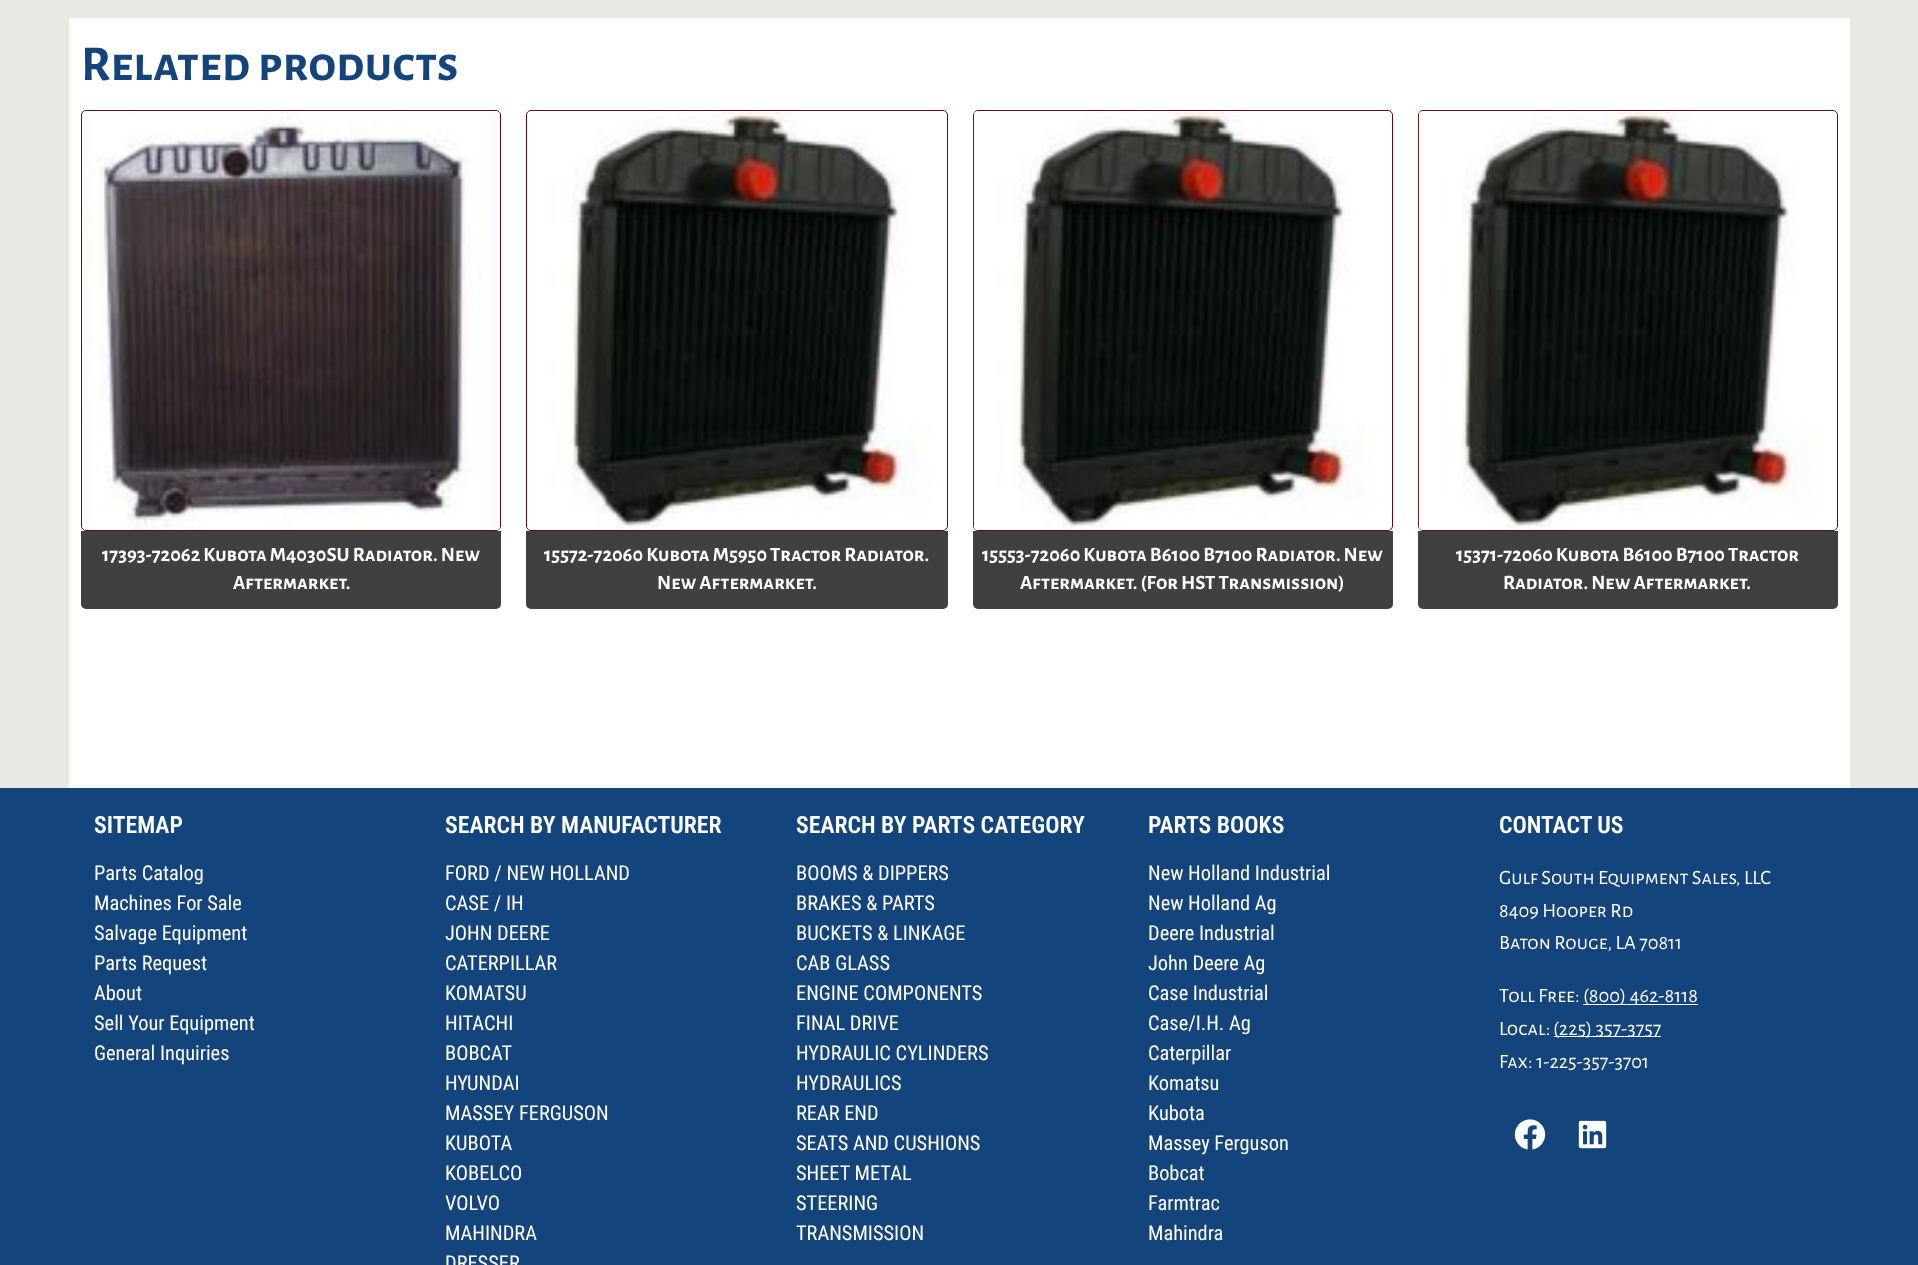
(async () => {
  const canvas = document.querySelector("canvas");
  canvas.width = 1918;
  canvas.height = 1265;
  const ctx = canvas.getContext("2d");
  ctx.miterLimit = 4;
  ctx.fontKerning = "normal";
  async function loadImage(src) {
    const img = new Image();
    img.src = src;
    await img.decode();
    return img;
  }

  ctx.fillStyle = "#eae8e4";
  ctx.fillRect(0, 0, 1918, 1265);
  ctx.fillStyle = "#ffffff";
  ctx.fillRect(69, 18, 1781, 770);
  ctx.beginPath();
  ctx.roundRect(81.5, 110.5, 419, 420, 4.5);
  ctx.strokeStyle = "#5d0d0d";
  ctx.stroke();
  ctx.drawImage(await loadImage("img/1.png"), 82, 111, 418, 419);
  ctx.fillStyle = "#404040";
  ctx.beginPath();
  ctx.roundRect(81, 531, 420, 78, [0, 0, 5, 5]);
  ctx.fill();
  ctx.beginPath();
  ctx.roundRect(526.5, 110.5, 421, 420, 4.5);
  ctx.stroke();
  ctx.drawImage(await loadImage("img/2.png"), 527, 111, 419, 419);
  ctx.beginPath();
  ctx.roundRect(526, 531, 422, 78, [0, 0, 5, 5]);
  ctx.fill();
  ctx.beginPath();
  ctx.roundRect(973.5, 110.5, 419, 420, 4.5);
  ctx.stroke();
  ctx.drawImage(await loadImage("img/3.png"), 973, 111, 418, 419);
  ctx.beginPath();
  ctx.roundRect(973, 531, 420, 78, [0, 0, 5, 5]);
  ctx.fill();
  ctx.beginPath();
  ctx.roundRect(1418.5, 110.5, 419, 420, 4.5);
  ctx.stroke();
  ctx.drawImage(await loadImage("img/4.png"), 1418, 111, 418, 419);
  ctx.beginPath();
  ctx.roundRect(1418, 531, 420, 78, [0, 0, 5, 5]);
  ctx.fill();
  for (const [x, y, w, h, color] of [
    [0, 788, 1918, 477, "#14447c"],
    [1583, 1004, 115, 1, "#ffffff"],
    [1554, 1036, 107, 1, "#ffffff"],
  ]) {
    ctx.fillStyle = color;
    ctx.fillRect(x, y, w, h);
  }
  ctx.drawImage(await loadImage("img/5.png"), 1514, 1119, 32, 31);
  ctx.drawImage(await loadImage("img/6.png"), 1578, 1120, 29, 29);
  ctx.font = "bold 50px Alegreya Sans SC";
  ctx.fillStyle = "#14447c";
  ctx.fillText("Related products", 81, 80);
  ctx.font = "bold 20.4px Alegreya Sans SC";
  ctx.fillStyle = "#ffffff";
  for (const [text, x, y] of [
    ["17393-72062 Kubota M4030SU Radiator. New", 102, 561],
    ["Aftermarket.", 233, 589],
    ["15572-72060 Kubota M5950 Tractor Radiator.", 544, 561],
    ["New Aftermarket.", 657, 589],
    ["15553-72060 Kubota B6100 B7100 Radiator. New", 982, 561],
    ["Aftermarket. (For HST Transmission)", 1020, 589],
    ["15371-72060 Kubota B6100 B7100 Tractor", 1456, 561],
    ["Radiator. New Aftermarket.", 1503, 589],
  ]) {
    ctx.fillText(text, x, y);
  }
  ctx.font = "600 23.75px Roboto Condensed";
  ctx.fillText("SITEMAP", 94, 833);
  ctx.font = "20.4px Roboto Condensed";
  for (const [text, x, y] of [
    ["Parts Catalog", 94, 880],
    ["Machines For Sale", 94, 910],
    ["Salvage Equipment", 94, 940],
    ["Parts Request", 94, 970],
    ["About", 94, 1000],
    ["Sell Your Equipment", 94, 1030],
    ["General Inquiries", 94, 1060],
  ]) {
    ctx.fillText(text, x, y);
  }
  ctx.font = "600 23.75px Roboto Condensed";
  ctx.fillText("SEARCH BY MANUFACTURER", 445, 833);
  ctx.font = "20.4px Roboto Condensed";
  for (const [text, x, y] of [
    ["FORD / NEW HOLLAND", 445, 880],
    ["CASE / IH", 445, 910],
    ["JOHN DEERE", 445, 940],
    ["CATERPILLAR", 445, 970],
    ["KOMATSU", 445, 1000],
    ["HITACHI", 445, 1030],
    ["BOBCAT", 445, 1060],
    ["HYUNDAI", 445, 1090],
    ["MASSEY FERGUSON", 445, 1120],
    ["KUBOTA", 445, 1150],
    ["KOBELCO", 445, 1180],
    ["VOLVO", 445, 1210],
    ["MAHINDRA", 445, 1240],
    ["DRESSER", 445, 1270],
  ]) {
    ctx.fillText(text, x, y);
  }
  ctx.font = "600 23.75px Roboto Condensed";
  ctx.fillText("SEARCH BY PARTS CATEGORY", 796, 833);
  ctx.font = "20.4px Roboto Condensed";
  for (const [text, x, y] of [
    ["BOOMS & DIPPERS", 796, 880],
    ["BRAKES & PARTS", 796, 910],
    ["BUCKETS & LINKAGE", 796, 940],
    ["CAB GLASS", 796, 970],
    ["ENGINE COMPONENTS", 796, 1000],
    ["FINAL DRIVE", 796, 1030],
    ["HYDRAULIC CYLINDERS", 796, 1060],
    ["HYDRAULICS", 796, 1090],
    ["REAR END", 796, 1120],
    ["SEATS AND CUSHIONS", 796, 1150],
    ["SHEET METAL", 796, 1180],
    ["STEERING", 796, 1210],
    ["TRANSMISSION", 796, 1240],
  ]) {
    ctx.fillText(text, x, y);
  }
  ctx.font = "600 23.75px Roboto Condensed";
  ctx.fillText("PARTS BOOKS", 1148, 833);
  ctx.font = "20.4px Roboto Condensed";
  for (const [text, x, y] of [
    ["New Holland Industrial", 1148, 880],
    ["New Holland Ag", 1148, 910],
    ["Deere Industrial", 1148, 940],
    ["John Deere Ag", 1148, 970],
    ["Case Industrial", 1148, 1000],
    ["Case/I.H. Ag", 1148, 1030],
    ["Caterpillar", 1148, 1060],
    ["Komatsu", 1148, 1090],
    ["Kubota", 1148, 1120],
    ["Massey Ferguson", 1148, 1150],
    ["Bobcat", 1148, 1180],
    ["Farmtrac", 1148, 1210],
    ["Mahindra", 1148, 1240],
  ]) {
    ctx.fillText(text, x, y);
  }
  ctx.font = "600 23.75px Roboto Condensed";
  ctx.fillText("CONTACT US", 1499, 833);
  ctx.font = "20.4px Alegreya Sans SC";
  for (const [text, x, y] of [
    ["Gulf South Equipment Sales, LLC", 1499, 884],
    ["8409 Hooper Rd", 1499, 917],
    ["Baton Rouge, LA 70811", 1499, 949],
    ["Toll Free:", 1499, 1002],
    ["(800) 462-8118", 1583, 1002],
    ["Local:", 1499, 1035],
    ["(225) 357-3757", 1553, 1035],
    ["Fax: 1-225-357-3701", 1499, 1068],
  ]) {
    ctx.fillText(text, x, y);
  }
})();
